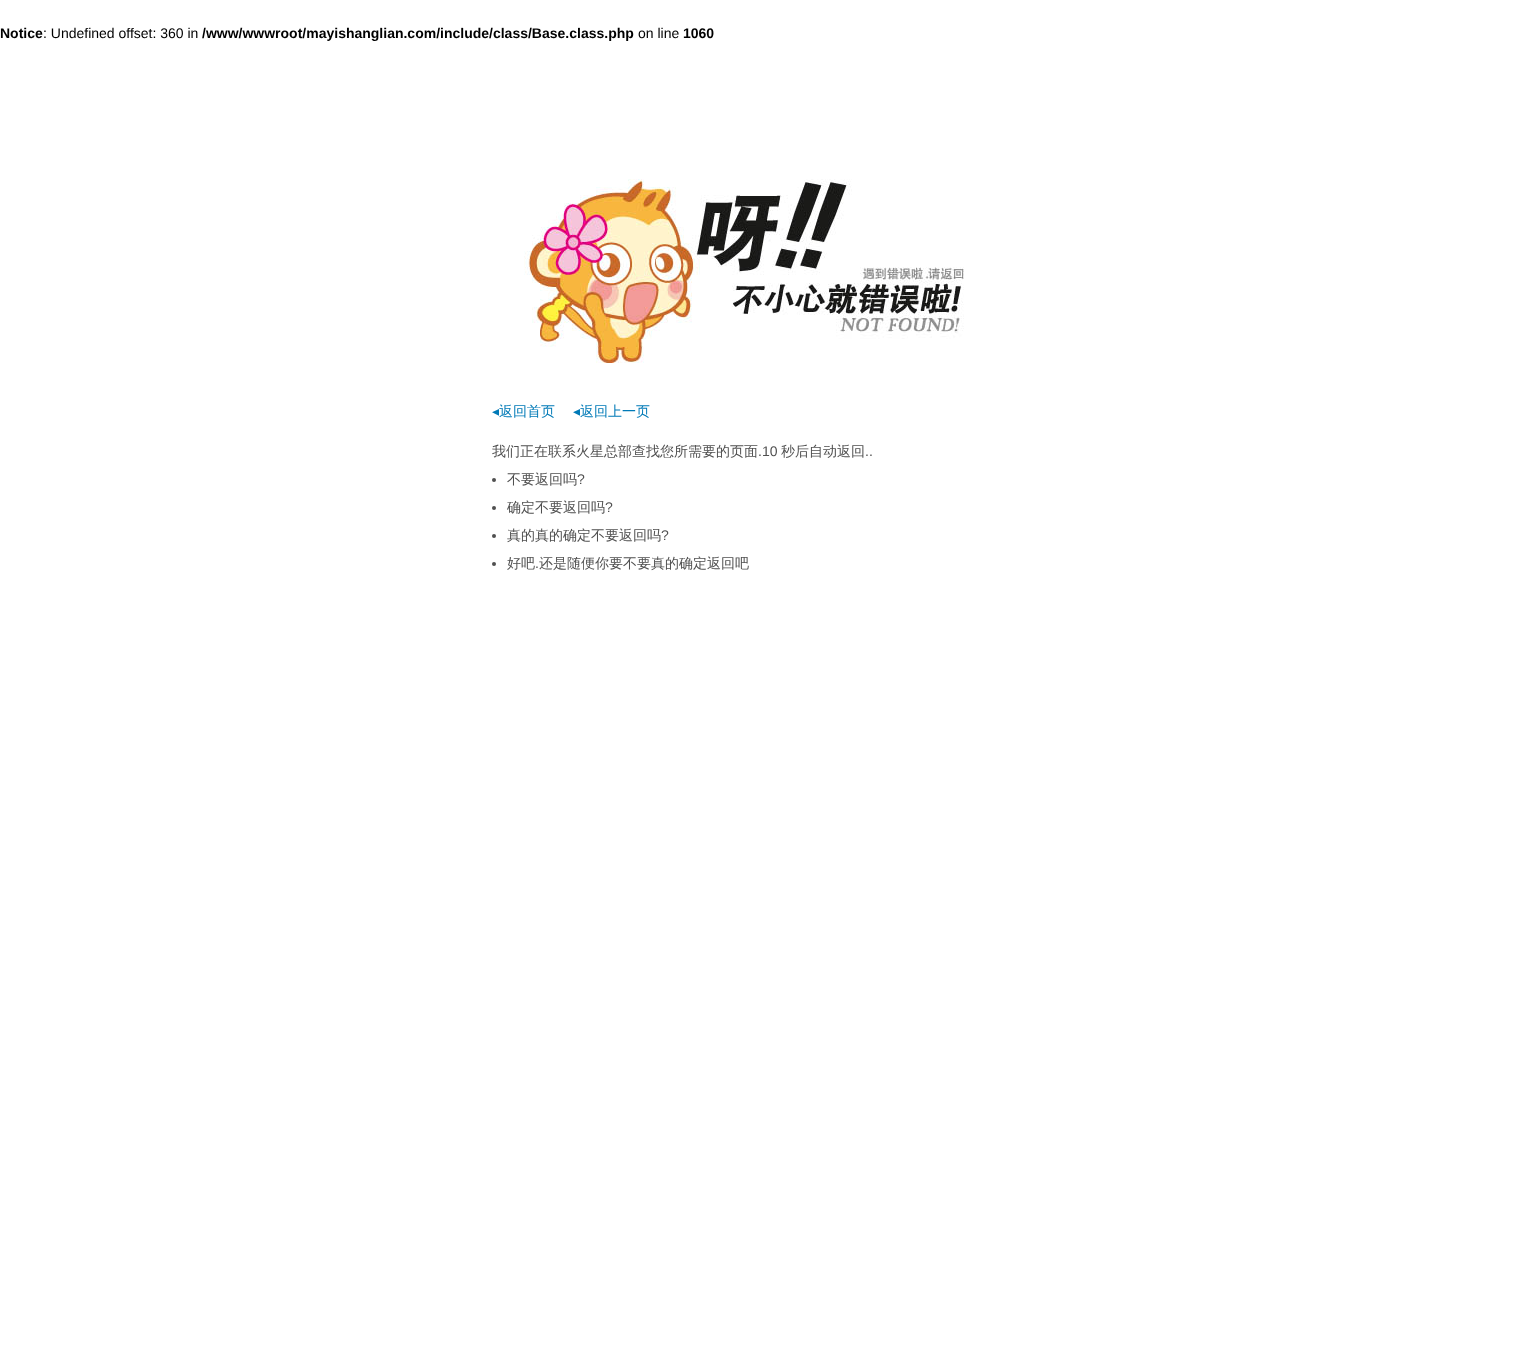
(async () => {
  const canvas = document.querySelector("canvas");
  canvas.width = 1524;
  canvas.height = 1356;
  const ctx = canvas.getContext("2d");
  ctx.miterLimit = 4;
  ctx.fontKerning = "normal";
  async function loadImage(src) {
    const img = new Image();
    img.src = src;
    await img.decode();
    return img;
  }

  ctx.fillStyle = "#ffffff";
  ctx.fillRect(0, 0, 1524, 1356);
  ctx.drawImage(await loadImage("img/1.png"), 524, 179, 440, 184);
  ctx.fillStyle = "#505050";
  ctx.beginPath();
  ctx.arc(494, 480, 2, 0, Math.PI * 2);
  ctx.fill();
  ctx.beginPath();
  ctx.arc(494, 508, 2, 0, Math.PI * 2);
  ctx.fill();
  ctx.beginPath();
  ctx.arc(494, 536, 2, 0, Math.PI * 2);
  ctx.fill();
  ctx.beginPath();
  ctx.arc(494, 564, 2, 0, Math.PI * 2);
  ctx.fill();
  ctx.font = "bold 14px Liberation Sans";
  ctx.fillStyle = "#000000";
  ctx.fillText("Notice", 0, 38);
  ctx.font = "14px Liberation Sans";
  ctx.fillText(": Undefined offset: 360 in", 43, 38);
  ctx.font = "bold 14px Liberation Sans";
  ctx.fillText("/www/wwwroot/mayishanglian.com/include/class/Base.class.php", 202, 38);
  ctx.font = "14px Liberation Sans";
  ctx.fillText("on line", 638, 38);
  ctx.font = "bold 14px Liberation Sans";
  ctx.fillText("1060", 683, 38);
  ctx.font = "14px DejaVu Sans";
  ctx.fillStyle = "#007ab7";
  ctx.fillText("◂", 492, 416);
  ctx.font = "500 14px WenQuanYi Zen Hei";
  ctx.fillText("返回首页", 499, 416);
  ctx.font = "14px DejaVu Sans";
  ctx.fillText("◂", 573, 416);
  ctx.font = "500 14px WenQuanYi Zen Hei";
  ctx.fillText("返回上一页", 580, 416);
  ctx.fillStyle = "#505050";
  ctx.fillText("我们正在联系火星总部查找您所需要的页面", 492, 456);
  ctx.font = "14px Liberation Sans";
  ctx.fillText(".10", 758, 456);
  ctx.font = "500 14px WenQuanYi Zen Hei";
  ctx.fillText("秒后自动返回", 781, 456);
  ctx.font = "14px Liberation Sans";
  ctx.fillText("..", 865, 456);
  ctx.font = "500 14px WenQuanYi Zen Hei";
  ctx.fillText("不要返回吗", 507, 484);
  ctx.font = "14px Liberation Sans";
  ctx.fillText("?", 577, 484);
  ctx.font = "500 14px WenQuanYi Zen Hei";
  ctx.fillText("确定不要返回吗", 507, 512);
  ctx.font = "14px Liberation Sans";
  ctx.fillText("?", 605, 512);
  ctx.font = "500 14px WenQuanYi Zen Hei";
  ctx.fillText("真的真的确定不要返回吗", 507, 540);
  ctx.font = "14px Liberation Sans";
  ctx.fillText("?", 661, 540);
  ctx.font = "500 14px WenQuanYi Zen Hei";
  ctx.fillText("好吧", 507, 568);
  ctx.fillText("还是随便你要不要真的确定返回吧", 539, 568);
  ctx.font = "14px Liberation Sans";
  ctx.fillText(".", 535, 568);
})();
